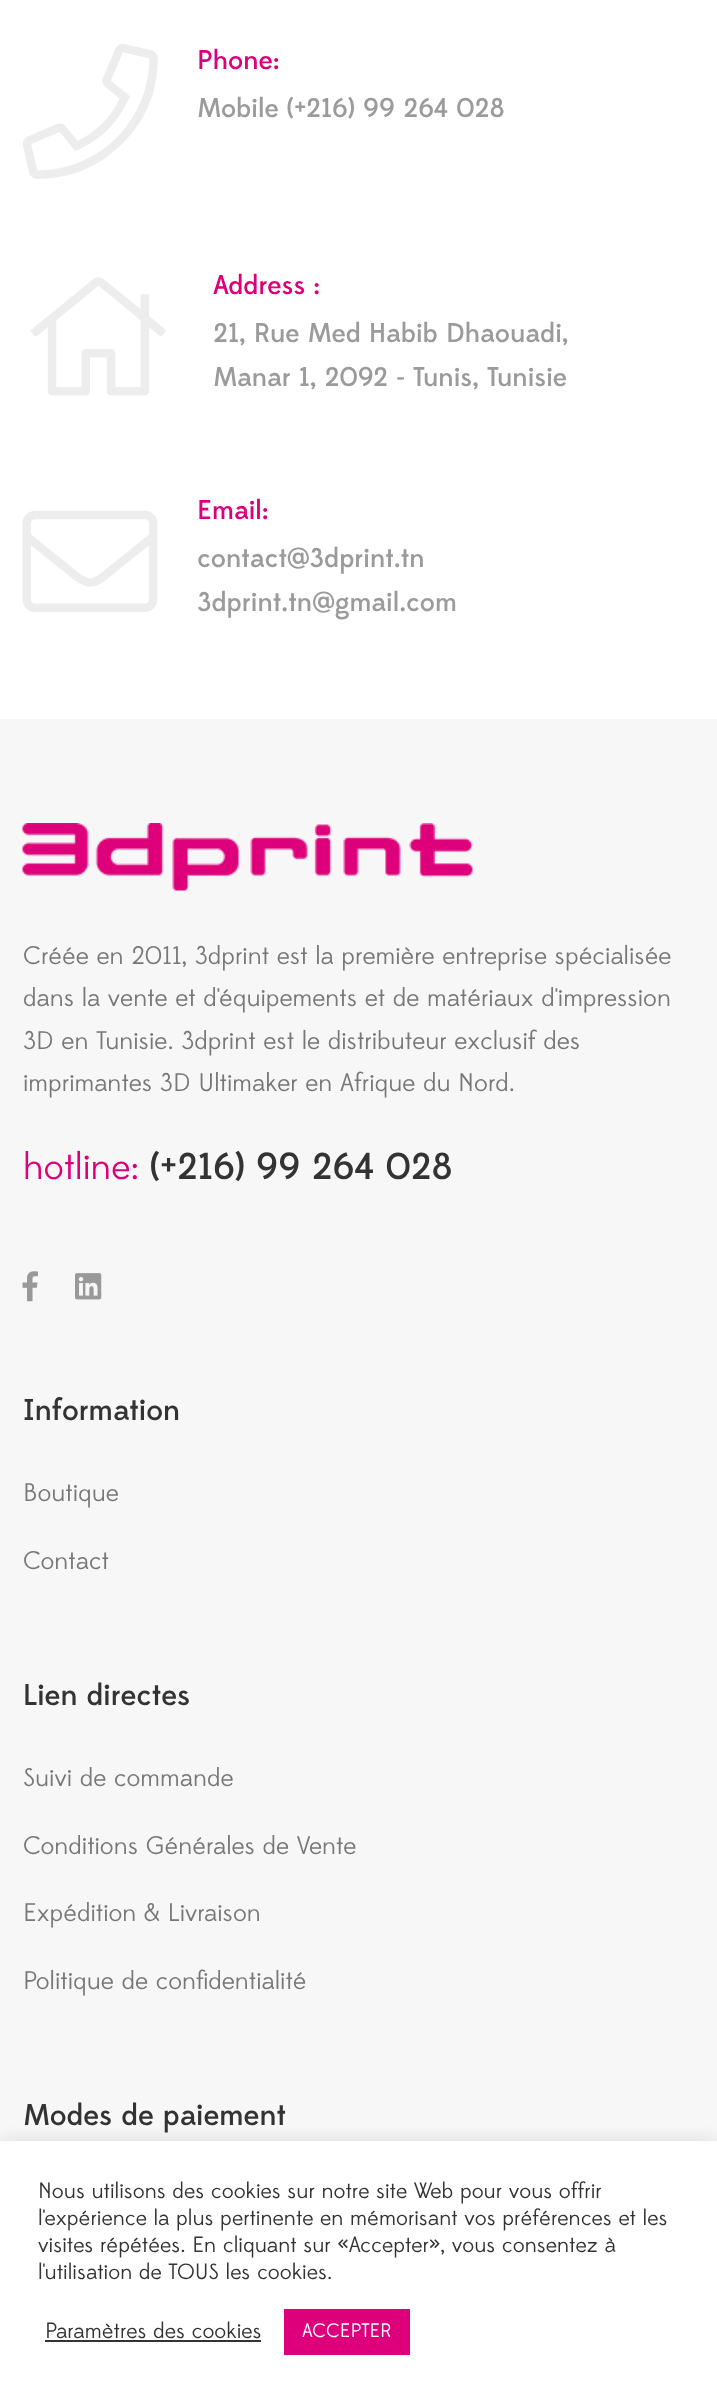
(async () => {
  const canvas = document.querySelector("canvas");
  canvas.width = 717;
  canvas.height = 2400;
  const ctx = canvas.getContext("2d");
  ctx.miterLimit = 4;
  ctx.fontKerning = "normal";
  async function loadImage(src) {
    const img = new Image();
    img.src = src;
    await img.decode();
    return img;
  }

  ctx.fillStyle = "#ffffff";
  ctx.fillRect(0, 0, 717, 2400);
  ctx.drawImage(await loadImage("img/1.png"), 22, 44, 136, 135);
  ctx.drawImage(await loadImage("img/2.png"), 31, 277, 135, 119);
  ctx.drawImage(await loadImage("img/3.png"), 22, 510, 136, 102);
  ctx.fillStyle = "#f7f7f7";
  ctx.fillRect(0, 719, 717, 1422);
  ctx.drawImage(await loadImage("img/4.png"), 22, 823, 451, 68);
  ctx.drawImage(await loadImage("img/5.png"), 22, 1271, 16, 31);
  ctx.drawImage(await loadImage("img/6.png"), 75, 1273, 27, 27);
  ctx.fillStyle = "rgba(172, 171, 171, 0.3)";
  ctx.filter = "blur(7.5px)";
  ctx.beginPath();
  ctx.rect(0, 2139, 717, 260);
  ctx.fill();
  ctx.filter = "none";
  for (const [x, y, w, h, color] of [
    [0, 2141, 717, 259, "#ffffff"],
    [45, 2340, 216, 2, "#333333"],
    [284, 2309, 126, 46, "#de007a"],
  ]) {
    ctx.fillStyle = color;
    ctx.fillRect(x, y, w, h);
  }
  ctx.font = "500 27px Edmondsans";
  ctx.fillText("Phone:", 197, 69);
  ctx.fillStyle = "#9b9b9b";
  ctx.fillText("Mobile (+216) 99 264 028", 197, 117);
  ctx.fillStyle = "#de007a";
  ctx.fillText("Address :", 213, 294);
  ctx.fillStyle = "#9b9b9b";
  ctx.fillText("21, Rue Med Habib Dhaouadi,", 213, 342);
  ctx.fillText("Manar 1, 2092 - Tunis, Tunisie", 213, 386);
  ctx.fillStyle = "#de007a";
  ctx.fillText("Email:", 197, 519);
  ctx.fillStyle = "#9b9b9b";
  ctx.fillText("contact@3dprint.tn", 197, 567);
  ctx.fillText("3dprint.tn@gmail.com", 197, 611);
  ctx.font = "25.5px Edmondsans";
  ctx.fillStyle = "#777777";
  for (const [text, x, y] of [
    ["Créée en 2011, 3dprint est la première entreprise spécialisée", 23, 964],
    ["dans la vente et d'équipements et de matériaux d'impression", 23, 1006],
    ["3D en Tunisie. 3dprint est le distributeur exclusif des", 23, 1049],
    ["imprimantes 3D Ultimaker en Afrique du Nord.", 23, 1091],
  ]) {
    ctx.fillText(text, x, y);
  }
  ctx.font = "37.5px Edmondsans";
  ctx.fillStyle = "#de007a";
  ctx.fillText("hotline:", 23, 1179);
  ctx.font = "500 37.5px Edmondsans";
  ctx.fillStyle = "#333333";
  ctx.fillText("(+216) 99 264 028", 150, 1179);
  ctx.font = "500 30px Edmondsans";
  ctx.fillText("Information", 23, 1420);
  ctx.font = "25.5px Edmondsans";
  ctx.fillStyle = "#777777";
  ctx.fillText("Boutique", 23, 1501);
  ctx.fillText("Contact", 23, 1569);
  ctx.font = "500 30px Edmondsans";
  ctx.fillStyle = "#333333";
  ctx.fillText("Lien directes", 23, 1705);
  ctx.font = "25.5px Edmondsans";
  ctx.fillStyle = "#777777";
  for (const [text, x, y] of [
    ["Suivi de commande", 23, 1786],
    ["Conditions Générales de Vente", 23, 1854],
    ["Expédition & Livraison", 23, 1921],
    ["Politique de confidentialité", 23, 1989],
  ]) {
    ctx.fillText(text, x, y);
  }
  ctx.font = "500 30px Edmondsans";
  ctx.fillStyle = "#333333";
  ctx.fillText("Modes de paiement", 23, 2125);
  ctx.font = "22px Edmondsans";
  for (const [text, x, y] of [
    ["Nous utilisons des cookies sur notre site Web pour vous offrir", 38, 2198],
    ["l'expérience la plus pertinente en mémorisant vos préférences et les", 38, 2225],
    ["visites répétées. En cliquant sur «Accepter», vous consentez à", 38, 2252],
    ["l'utilisation de TOUS les cookies.", 38, 2279],
    ["Paramètres des cookies", 45, 2338],
  ]) {
    ctx.fillText(text, x, y);
  }
  ctx.font = "19.5px Edmondsans";
  ctx.fillStyle = "#ffffff";
  ctx.fillText("ACCEPTER", 302, 2337);
})();
